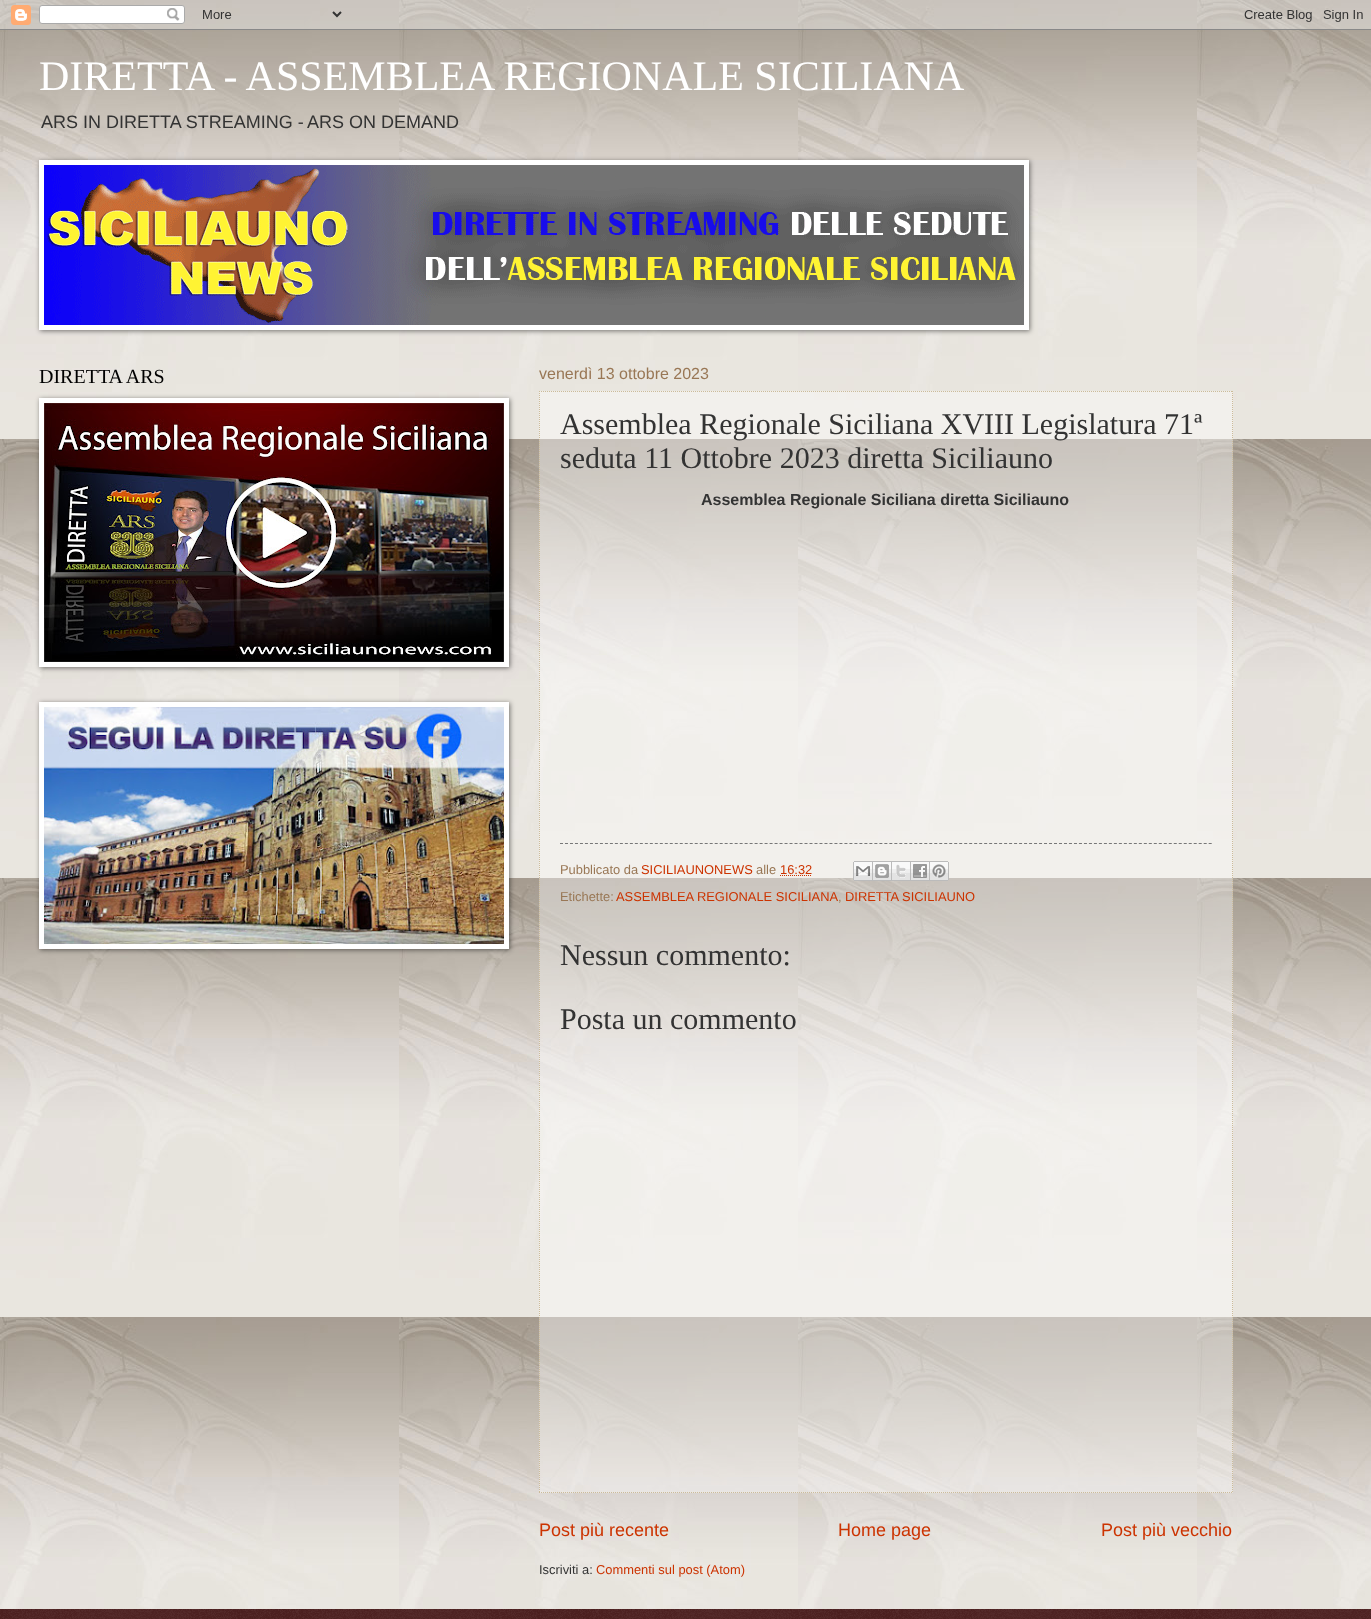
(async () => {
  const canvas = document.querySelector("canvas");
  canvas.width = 1371;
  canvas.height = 1619;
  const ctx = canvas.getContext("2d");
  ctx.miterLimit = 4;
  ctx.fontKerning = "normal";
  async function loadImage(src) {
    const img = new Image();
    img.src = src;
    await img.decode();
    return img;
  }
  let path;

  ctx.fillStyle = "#ffffff";
  ctx.fillRect(0, 0, 1371, 1619);
  ctx.drawImage(await loadImage("img/1.png"), 0, 0, 1371, 1609);
  ctx.drawImage(await loadImage("img/2.png"), 0, 0, 1371, 30);
  ctx.fillStyle = "rgba(0, 0, 0, 0.5)";
  ctx.filter = "blur(2.5px)";
  ctx.beginPath();
  ctx.rect(40, 161, 990, 170);
  ctx.fill();
  ctx.filter = "none";
  ctx.fillStyle = "#ffffff";
  ctx.fillRect(39, 160, 990, 170);
  ctx.drawImage(await loadImage("img/3.png"), 44, 165, 980, 160);
  ctx.fillStyle = "rgba(0, 0, 0, 0.5)";
  ctx.filter = "blur(2.5px)";
  ctx.beginPath();
  ctx.rect(40, 399, 470, 269);
  ctx.fill();
  ctx.filter = "none";
  ctx.fillStyle = "#ffffff";
  ctx.fillRect(39, 398, 470, 269);
  ctx.drawImage(await loadImage("img/4.png"), 44, 403, 460, 259);
  ctx.fillStyle = "rgba(0, 0, 0, 0.5)";
  ctx.filter = "blur(2.5px)";
  ctx.beginPath();
  ctx.rect(40, 703, 470, 247);
  ctx.fill();
  ctx.filter = "none";
  ctx.fillStyle = "#ffffff";
  ctx.fillRect(39, 702, 470, 247);
  ctx.drawImage(await loadImage("img/5.png"), 44, 707, 460, 237);
  ctx.fillStyle = "rgba(255, 255, 255, 0.4)";
  ctx.fillRect(539, 391, 694, 1102);
  path = new Path2D("M539 391.5H1233");
  ctx.strokeStyle = "#ccbb99";
  ctx.setLineDash([1, 1]);
  ctx.stroke(path);
  path = new Path2D("M1232.5 391V1493");
  ctx.stroke(path);
  path = new Path2D("M539 1492.5H1233");
  ctx.stroke(path);
  path = new Path2D("M539.5 391V1493");
  ctx.stroke(path);
  path = new Path2D("M560 843.5H1212");
  ctx.strokeStyle = "#777777";
  ctx.setLineDash([3, 1.99]);
  ctx.stroke(path);
  path = new Path2D("M780 875.5H812");
  ctx.strokeStyle = "#cc3300";
  ctx.setLineDash([1, 1]);
  ctx.stroke(path);
  ctx.drawImage(await loadImage("img/6.png"), 853, 861, 20, 20);
  ctx.drawImage(await loadImage("img/7.png"), 873, 861, 19, 20);
  ctx.drawImage(await loadImage("img/8.png"), 892, 861, 19, 20);
  ctx.drawImage(await loadImage("img/9.png"), 911, 861, 19, 20);
  ctx.drawImage(await loadImage("img/10.png"), 930, 861, 19, 20);
  ctx.fillStyle = "#330000";
  ctx.fillRect(0, 1609, 1371, 10);
  ctx.drawImage(await loadImage("img/11.png"), 0, 1609, 1371, 10);
  ctx.font = "42px Liberation Serif";
  ctx.fillStyle = "#ffffff";
  ctx.fillText("DIRETTA - ASSEMBLEA REGIONALE SICILIANA", 39, 90);
  ctx.font = "18px Liberation Sans";
  ctx.fillStyle = "#333333";
  ctx.fillText("ARS IN DIRETTA STREAMING -", 41, 128);
  ctx.fillText("ARS ON DEMAND", 307, 128);
  ctx.font = "20px Liberation Serif";
  ctx.fillStyle = "#000000";
  ctx.fillText("DIRETTA ARS", 39, 383);
  ctx.font = "16px Liberation Sans";
  ctx.fillStyle = "#997755";
  ctx.fillText("venerdì 13 ottobre 2023", 539, 379);
  ctx.font = "30px Liberation Serif";
  ctx.fillStyle = "#333333";
  ctx.fillText("Assemblea Regionale Siciliana XVIII Legislatura 71ª", 560, 434);
  ctx.fillText("seduta 11 Ottobre 2023 diretta Siciliauno", 560, 468);
  ctx.font = "bold 16px Liberation Sans";
  ctx.fillText("Assemblea Regionale Siciliana diretta Siciliauno", 701, 505);
  ctx.font = "12.9px Liberation Sans";
  ctx.fillStyle = "#997755";
  ctx.fillText("Pubblicato da", 560, 874);
  ctx.fillStyle = "#cc3300";
  ctx.fillText("SICILIAUNONEWS", 641, 874);
  ctx.fillStyle = "#997755";
  ctx.fillText("alle", 756, 874);
  ctx.fillStyle = "#cc3300";
  ctx.fillText("16:32", 780, 874);
  ctx.fillStyle = "#997755";
  ctx.fillText("Etichette:", 560, 901);
  ctx.fillStyle = "#cc3300";
  ctx.fillText("ASSEMBLEA REGIONALE SICILIANA", 616, 901);
  ctx.fillStyle = "#997755";
  ctx.fillText(",", 838, 901);
  ctx.fillStyle = "#cc3300";
  ctx.fillText("DIRETTA SICILIAUNO", 845, 901);
  ctx.font = "30px Liberation Serif";
  ctx.fillStyle = "#333333";
  ctx.fillText("Nessun commento:", 560, 965);
  ctx.fillText("Posta un commento", 560, 1029);
  ctx.font = "18px Liberation Sans";
  ctx.fillStyle = "#cc3300";
  for (const [text, x, y] of [
    ["Post più recente", 539, 1536],
    ["Home page", 838, 1536],
    ["Post più vecchio", 1101, 1536],
  ]) {
    ctx.fillText(text, x, y);
  }
  ctx.font = "12.9px Liberation Sans";
  ctx.fillStyle = "#333333";
  ctx.fillText("Iscriviti a:", 539, 1574);
  ctx.fillStyle = "#cc3300";
  ctx.fillText("Commenti sul post (Atom)", 596, 1574);
})();
